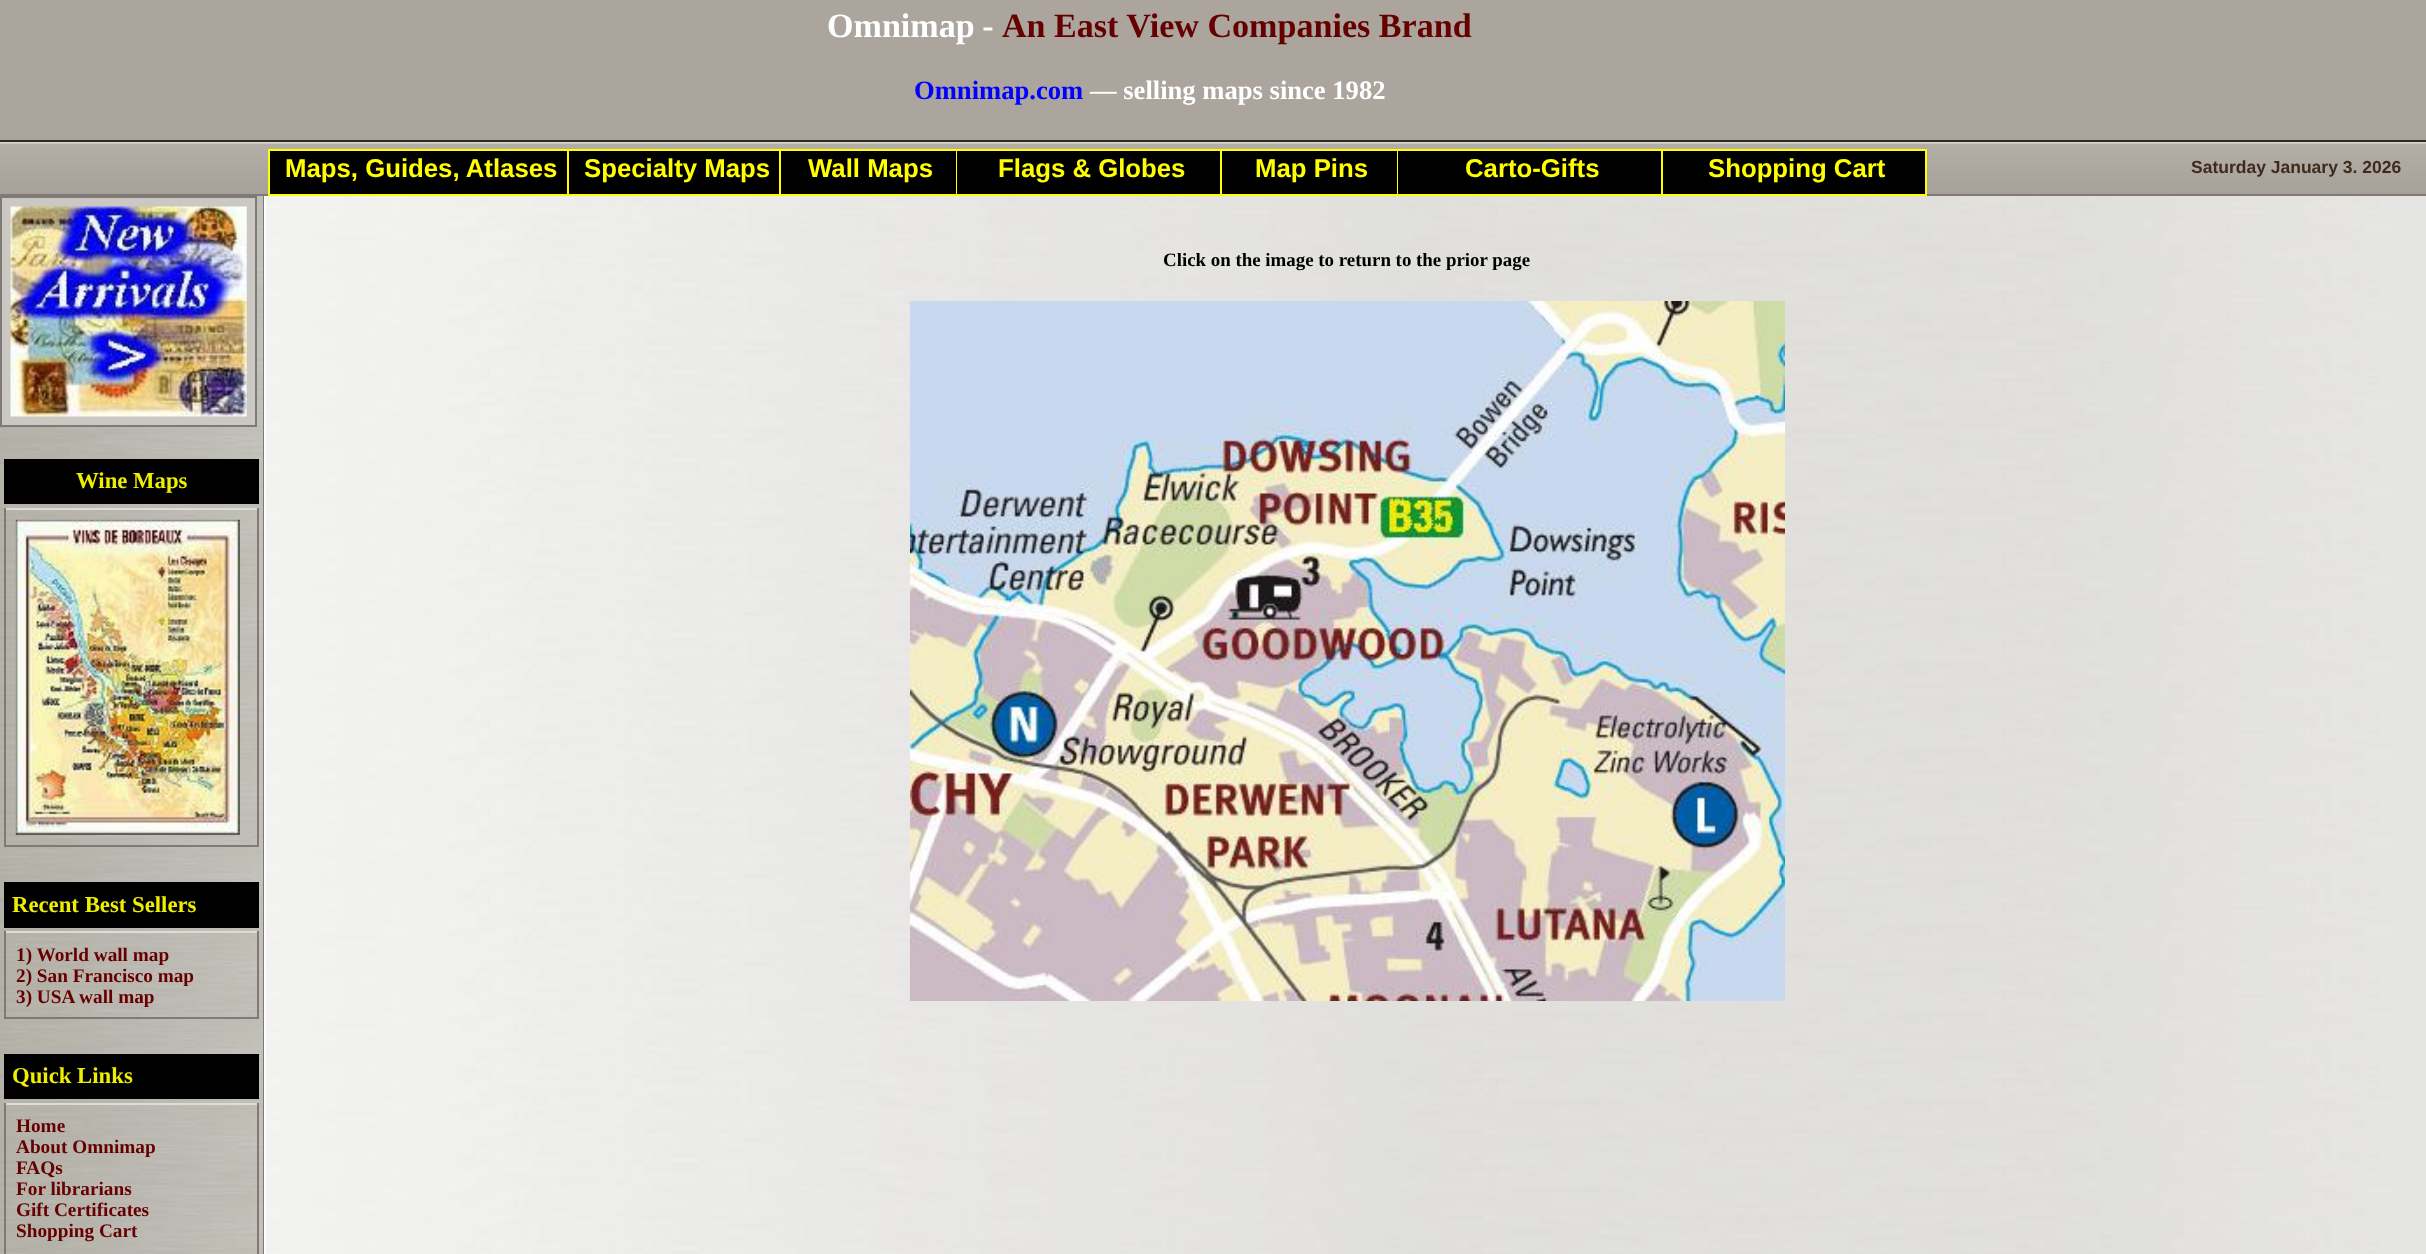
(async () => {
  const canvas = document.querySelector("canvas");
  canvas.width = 2426;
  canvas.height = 1254;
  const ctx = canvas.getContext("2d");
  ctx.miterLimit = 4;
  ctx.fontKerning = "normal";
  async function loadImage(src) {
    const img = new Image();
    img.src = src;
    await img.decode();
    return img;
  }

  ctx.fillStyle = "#ffffff";
  ctx.fillRect(0, 0, 2426, 1254);
  ctx.drawImage(await loadImage("img/1.png"), 266, 196, 2160, 1058);
  ctx.fillStyle = "#aba59e";
  ctx.fillRect(0, 0, 2426, 140);
  ctx.drawImage(await loadImage("img/2.png"), 0, 142, 2426, 52);
  ctx.fillStyle = "#322926";
  ctx.fillRect(0, 140, 2426, 2);
  ctx.fillStyle = "#807a77";
  ctx.fillRect(0, 194, 2426, 2);
  ctx.drawImage(await loadImage("img/3.png"), 0, 196, 263, 1058);
  ctx.fillRect(263, 196, 1, 1058);
  ctx.fillStyle = "#cbc7c3";
  ctx.beginPath();
  ctx.rect(1, 197, 255, 229);
  ctx.fill();
  ctx.strokeStyle = "#807a77";
  ctx.lineWidth = 2;
  ctx.stroke();
  ctx.drawImage(await loadImage("img/4.png"), 10, 206, 237, 211);
  for (const [x, y, w, h, color] of [
    [4, 459, 255, 45, "#000000"],
    [4, 508, 255, 2, "#dddcd6"],
    [257, 508, 2, 339, "#807a77"],
    [4, 845, 255, 2, "#807a77"],
    [4, 508, 2, 339, "#807a77"],
  ]) {
    ctx.fillStyle = color;
    ctx.fillRect(x, y, w, h);
  }
  ctx.drawImage(await loadImage("img/5.png"), 15, 519, 225, 316);
  for (const [x, y, w, h, color] of [
    [4, 882, 255, 46, "#000000"],
    [4, 931, 255, 2, "#dddcd6"],
    [257, 931, 2, 88, "#807a77"],
    [4, 1017, 255, 2, "#807a77"],
    [4, 931, 2, 88, "#807a77"],
    [4, 1054, 255, 45, "#000000"],
    [4, 1103, 255, 2, "#dddcd6"],
    [257, 1103, 2, 151, "#807a77"],
    [4, 1103, 2, 151, "#807a77"],
  ]) {
    ctx.fillStyle = color;
    ctx.fillRect(x, y, w, h);
  }
  ctx.drawImage(await loadImage("img/6.png"), 910, 301, 875, 700);
  for (const [x, y, w, h, color] of [
    [268, 149, 1659, 47, "#ffff00"],
    [270, 151, 297, 43, "#000000"],
    [569, 151, 210, 43, "#000000"],
    [781, 151, 175, 43, "#000000"],
    [957, 151, 263, 43, "#000000"],
    [1222, 151, 175, 43, "#000000"],
    [1398, 151, 263, 43, "#000000"],
    [1663, 151, 262, 43, "#000000"],
  ]) {
    ctx.fillStyle = color;
    ctx.fillRect(x, y, w, h);
  }
  ctx.wordSpacing = "-1px";
  ctx.font = "bold 34.1px Liberation Serif";
  ctx.fillStyle = "#ffffff";
  ctx.fillText("Omnimap -", 827, 37);
  ctx.wordSpacing = "0px";
  ctx.fillStyle = "#660000";
  ctx.fillText("An East View Companies Brand", 1002, 37);
  ctx.font = "bold 26.6px Liberation Serif";
  ctx.fillStyle = "#0000ff";
  ctx.fillText("Omnimap.com", 914, 99);
  ctx.fillStyle = "#ffffff";
  ctx.fillText("— selling maps since 1982", 1090, 99);
  ctx.font = "bold 17.5px Liberation Sans";
  ctx.fillStyle = "#3e2b1e";
  ctx.fillText("Saturday January 3. 2026", 2191, 173);
  ctx.font = "bold 22.75px Liberation Serif";
  ctx.fillStyle = "#eeee00";
  ctx.fillText("Wine Maps", 76, 488);
  ctx.fillText("Recent Best Sellers", 12, 912);
  ctx.font = "bold 19.25px Liberation Serif";
  ctx.fillStyle = "#660000";
  for (const [text, x, y] of [
    ["1) World wall map", 16, 961],
    ["2) San Francisco map", 16, 982],
    ["3) USA wall map", 16, 1003],
  ]) {
    ctx.fillText(text, x, y);
  }
  ctx.font = "bold 22.75px Liberation Serif";
  ctx.fillStyle = "#eeee00";
  ctx.fillText("Quick Links", 12, 1083);
  ctx.font = "bold 19.25px Liberation Serif";
  ctx.fillStyle = "#660000";
  for (const [text, x, y] of [
    ["Home", 16, 1132],
    ["About Omnimap", 16, 1153],
    ["FAQs", 16, 1174],
    ["For librarians", 16, 1195],
    ["Gift Certificates", 16, 1216],
    ["Shopping Cart", 16, 1237],
  ]) {
    ctx.fillText(text, x, y);
  }
  ctx.font = "bold 18.9px Liberation Serif";
  ctx.fillStyle = "#000000";
  ctx.fillText("Click on the image to return to the prior page", 1163, 266);
  ctx.font = "bold 25.75px Liberation Sans";
  ctx.fillStyle = "#ffff00";
  for (const [text, x, y] of [
    ["Maps, Guides, Atlases", 285, 177],
    ["Specialty Maps", 584, 177],
    ["Wall Maps", 808, 177],
    ["Flags & Globes", 998, 177],
    ["Map Pins", 1255, 177],
    ["Carto-Gifts", 1465, 177],
    ["Shopping Cart", 1708, 177],
  ]) {
    ctx.fillText(text, x, y);
  }
})();
